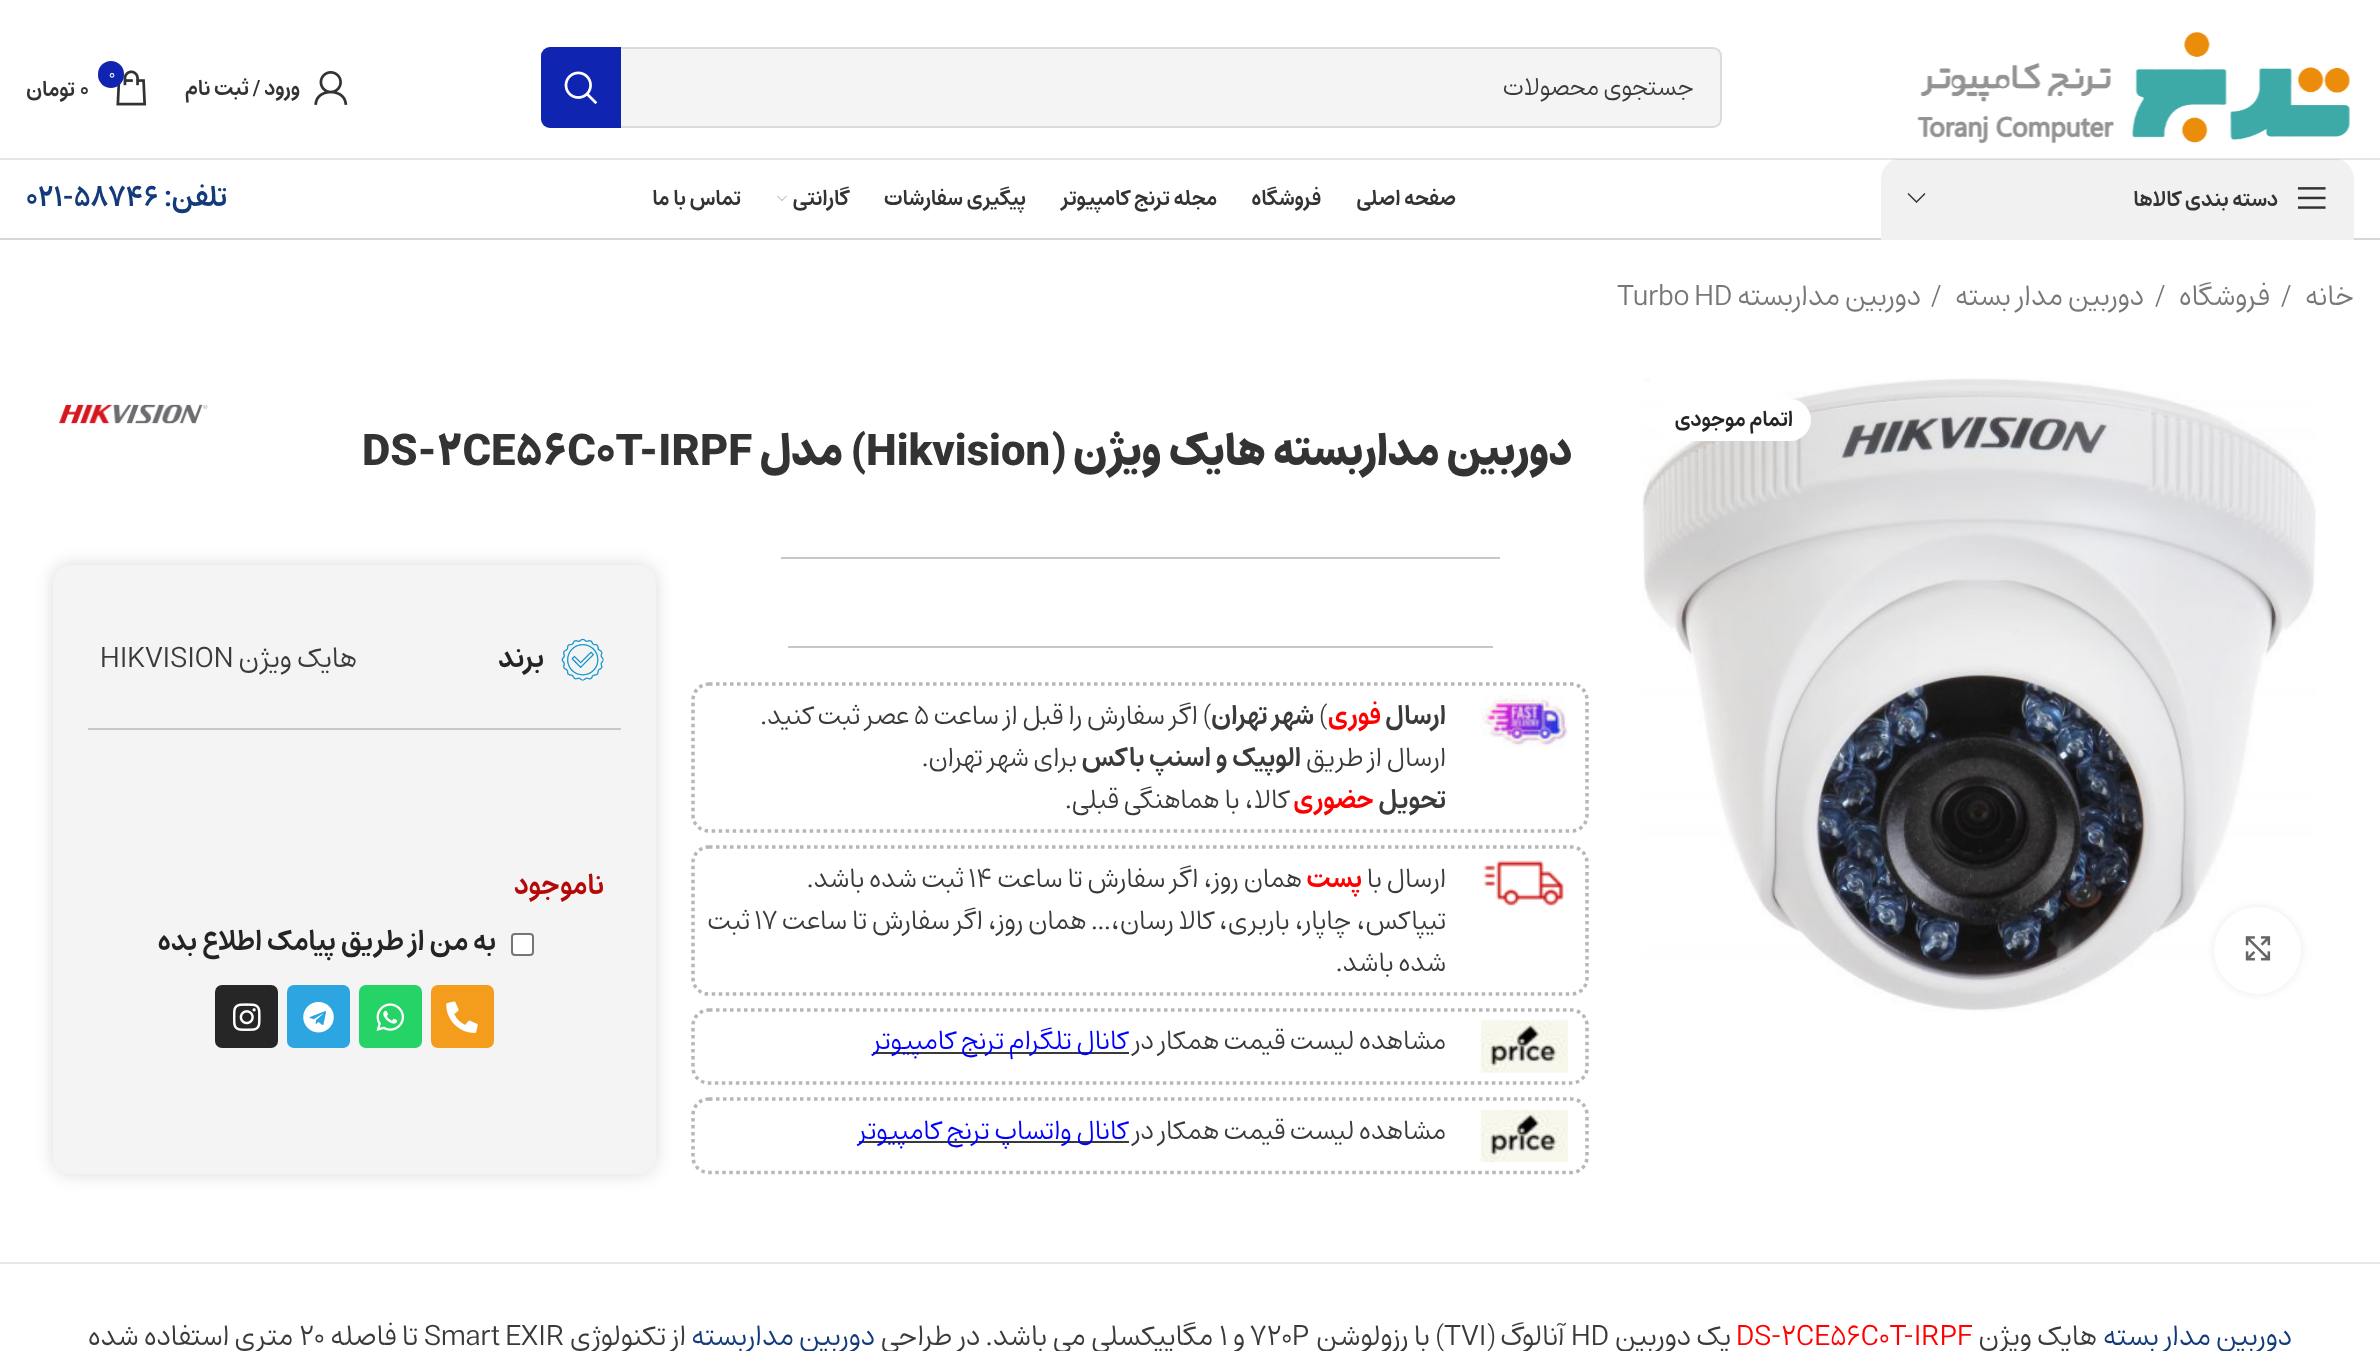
(async () => {
  const canvas = document.querySelector("canvas");
  canvas.width = 2380;
  canvas.height = 1351;
  const ctx = canvas.getContext("2d");
  ctx.miterLimit = 4;
  ctx.fontKerning = "normal";
  async function loadImage(src) {
    const img = new Image();
    img.src = src;
    await img.decode();
    return img;
  }
  let path;

  ctx.fillStyle = "#ffffff";
  ctx.fillRect(0, 0, 2380, 1351);
  ctx.fillStyle = "#d7d7d7";
  ctx.fillRect(0, 238, 2380, 2);
  ctx.fillStyle = "#f1f1f1";
  ctx.beginPath();
  ctx.roundRect(1881, 158, 473, 82, [21, 21, 0, 0]);
  ctx.fill();
  ctx.fillStyle = "#ffffff";
  ctx.fillRect(1896, 158, 443, 1);
  ctx.fillStyle = "rgba(129, 129, 129, 0.2)";
  ctx.fillRect(0, 158, 2380, 2);
  ctx.drawImage(await loadImage("img/1.png"), 1917, 32, 434, 112);
  ctx.fillStyle = "#f4f4f4";
  ctx.beginPath();
  ctx.roundRect(541, 47, 1181, 81, 9);
  ctx.fill();
  ctx.beginPath();
  ctx.roundRect(542, 48, 1179, 79, 8);
  ctx.strokeStyle = "rgba(0, 0, 0, 0.1)";
  ctx.lineWidth = 2;
  ctx.stroke();
  ctx.fillStyle = "#1024b2";
  ctx.beginPath();
  ctx.roundRect(541, 47, 80, 81, [9, 0, 0, 9]);
  ctx.fill();
  ctx.drawImage(await loadImage("img/2.png"), 564, 71, 34, 34);
  ctx.drawImage(await loadImage("img/3.png"), 314, 71, 34, 34);
  ctx.drawImage(await loadImage("img/4.png"), 116, 70, 31, 36);
  ctx.beginPath();
  ctx.roundRect(98, 61, 26, 27, 13);
  ctx.fill();
  ctx.drawImage(await loadImage("img/5.png"), 2297, 187, 29, 22);
  ctx.fillStyle = "#333333";
  path = new Path2D("M1924.5 193L1916.5 201L1908.5 193L1907.5 194L1916.5 203L1925.5 194Z");
  ctx.fill(path);
  ctx.drawImage(await loadImage("img/6.png"), 777, 195, 10, 6);
  ctx.fillStyle = "#e7e7e7";
  ctx.fillRect(0, 1262, 2380, 2);
  ctx.drawImage(await loadImage("img/7.png"), 1642, 378, 674, 634);
  ctx.fillStyle = "#ffffff";
  ctx.beginPath();
  ctx.roundRect(1657, 399, 154, 42, 21);
  ctx.fill();
  ctx.fillStyle = "rgba(0, 0, 0, 0.08)";
  ctx.filter = "blur(4.5px)";
  ctx.beginPath();
  ctx.roundRect(2214, 907, 87, 87, 43.5);
  ctx.fill();
  ctx.filter = "none";
  ctx.fillStyle = "#ffffff";
  ctx.beginPath();
  ctx.arc(2257.5, 950.5, 43.5, 0, Math.PI * 2);
  ctx.fill();
  ctx.drawImage(await loadImage("img/8.png"), 2245, 936, 26, 25);
  ctx.drawImage(await loadImage("img/9.png"), 59, 404, 149, 20);
  ctx.fillStyle = "#c7c7c7";
  ctx.fillRect(781, 557, 719, 2);
  ctx.fillRect(788, 646, 705, 2);
  path = new Path2D("M709 684H1571.5C1580 684 1587 691.5 1587 700V815.5C1587 824 1580 831 1571.5 831H709C700 831 693 824 693 815.5V700C693 691.5 700 684 709 684Z");
  ctx.strokeStyle = "#b7b7b7";
  ctx.lineWidth = 3.5;
  ctx.setLineDash([3.5, 3.5]);
  ctx.stroke(path);
  ctx.drawImage(await loadImage("img/10.png"), 1480, 695, 88, 52);
  path = new Path2D("M709 847H1571.5C1580 847 1587 854 1587 863V978C1587 987 1580 994 1571.5 994H709C700 994 693 987 693 978V863C693 854 700 847 709 847Z");
  ctx.stroke(path);
  ctx.drawImage(await loadImage("img/11.png"), 1483, 860, 82, 47);
  path = new Path2D("M709 1010H1571.5C1580 1010 1587 1017 1587 1025.5V1067.5C1587 1076 1580 1083 1571.5 1083H709C700 1083 693 1076 693 1067.5V1025.5C693 1017 700 1010 709 1010Z");
  ctx.stroke(path);
  ctx.drawImage(await loadImage("img/12.png"), 1480, 1020, 88, 53);
  ctx.fillStyle = "#3a3a3a";
  ctx.fillRect(873, 1052, 256, 2);
  path = new Path2D("M709 1099H1571.5C1580 1099 1587 1106 1587 1115V1157C1587 1165.5 1580 1172.5 1571.5 1172.5H709C700 1172.5 693 1165.5 693 1157V1115C693 1106 700 1099 709 1099Z");
  ctx.stroke(path);
  ctx.drawImage(await loadImage("img/13.png"), 1480, 1109, 88, 53);
  ctx.fillRect(859, 1141, 270, 2);
  ctx.fillStyle = "rgba(0, 0, 0, 0.15)";
  ctx.filter = "blur(9px)";
  ctx.beginPath();
  ctx.roundRect(53, 565, 603, 609, 18);
  ctx.fill();
  ctx.filter = "none";
  ctx.fillStyle = "#f4f4f4";
  ctx.beginPath();
  ctx.roundRect(53, 565, 603, 609, 18);
  ctx.fill();
  ctx.drawImage(await loadImage("img/14.png"), 561, 638, 43, 43);
  ctx.fillStyle = "#c8c8c8";
  ctx.fillRect(88, 728, 533, 2);
  ctx.fillStyle = "#ffffff";
  ctx.beginPath();
  ctx.roundRect(512, 934, 21, 21, 3);
  ctx.fill();
  ctx.strokeStyle = "#767676";
  ctx.lineWidth = 2;
  ctx.setLineDash([]);
  ctx.stroke();
  ctx.fillStyle = "#f49c1c";
  ctx.beginPath();
  ctx.roundRect(431, 985, 63, 63, 7);
  ctx.fill();
  ctx.drawImage(await loadImage("img/15.png"), 446, 1001, 32, 32);
  ctx.fillStyle = "#25d366";
  ctx.beginPath();
  ctx.roundRect(359, 985, 63, 63, 7);
  ctx.fill();
  ctx.drawImage(await loadImage("img/16.png"), 376, 1003, 28, 28);
  ctx.fillStyle = "#2ca5e0";
  ctx.beginPath();
  ctx.roundRect(287, 985, 63, 63, 7);
  ctx.fill();
  ctx.drawImage(await loadImage("img/17.png"), 303, 1001, 31, 32);
  ctx.fillStyle = "#262626";
  ctx.beginPath();
  ctx.roundRect(215, 985, 63, 63, 7);
  ctx.fill();
  ctx.drawImage(await loadImage("img/18.png"), 232, 1003, 29, 28);
  ctx.direction = "rtl";
  ctx.font = "24.5px 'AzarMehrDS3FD'";
  ctx.fillStyle = "#3a3a3a";
  ctx.fillText("جستجوی محصولات", 1694, 95);
  ctx.font = "bold 21px 'AzarMehrDS3FD'";
  ctx.fillStyle = "#333333";
  ctx.fillText("ورود / ثبت نام", 300, 95);
  ctx.direction = "ltr";
  ctx.font = "16px 'AzarMehrDS3FD'";
  ctx.fillStyle = "#ffffff";
  ctx.fillText("0", 109, 79);
  ctx.font = "bold 21px 'AzarMehrDS3FD'";
  ctx.fillStyle = "#333333";
  ctx.fillText("0", 80, 96);
  ctx.direction = "rtl";
  for (const [text, x, y] of [
    ["تومان", 75, 96],
    ["دسته بندی کالاها", 2278, 206],
    ["صفحه اصلی", 1456, 205],
    ["فروشگاه", 1321, 205],
    ["مجله ترنج کامپیوتر", 1217, 205],
    ["پیگیری سفارشات", 1026, 205],
    ["گارانتی", 849, 205],
    ["تماس با ما", 741, 205],
  ]) {
    ctx.fillText(text, x, y);
  }
  ctx.font = "bold 28px 'AzarMehrDS3FD'";
  ctx.fillStyle = "#133a7a";
  ctx.fillText("تلفن:", 227, 206);
  ctx.direction = "ltr";
  ctx.fillText("۰۲۱-۵۸۷۴۶", 26, 206);
  ctx.direction = "rtl";
  ctx.font = "28px 'AzarMehrDS3FD'";
  ctx.fillStyle = "#777777";
  ctx.fillText("خانه", 2354, 305);
  ctx.direction = "ltr";
  ctx.fillText("/", 2281, 305);
  ctx.direction = "rtl";
  ctx.fillText("فروشگاه", 2270, 305);
  ctx.direction = "ltr";
  ctx.fillText("/", 2155, 305);
  ctx.direction = "rtl";
  ctx.fillText("دوربین مدار بسته", 2144, 305);
  ctx.direction = "ltr";
  ctx.fillText("/", 1931, 305);
  ctx.direction = "rtl";
  ctx.fillText("دوربین مداربسته", 1921, 305);
  ctx.direction = "ltr";
  ctx.fillText("Turbo HD", 1617, 305);
  ctx.direction = "rtl";
  ctx.font = "bold 21px 'AzarMehrDS3FD'";
  ctx.fillStyle = "#242424";
  ctx.fillText("اتمام موجودی", 1793, 426);
  ctx.font = "900 43.75px 'AzarMehrDS3FD'";
  ctx.fillStyle = "#333333";
  ctx.fillText("دوربین مداربسته هایک ویژن (", 1572, 465);
  ctx.direction = "ltr";
  ctx.fillText("Hikvision", 866, 465);
  ctx.direction = "rtl";
  ctx.fillText(") مدل", 866, 465);
  ctx.direction = "ltr";
  ctx.fillText("DS-2CE56C0T-IRPF", 362, 465);
  ctx.direction = "rtl";
  ctx.font = "bold 26.25px 'AzarMehrDS3FD'";
  ctx.fillStyle = "#3a3a3a";
  ctx.fillText("ارسال", 1446, 724);
  ctx.fillStyle = "#ff0000";
  ctx.fillText("فوری", 1381, 724);
  ctx.direction = "ltr";
  ctx.font = "26.25px 'AzarMehrDS3FD'";
  ctx.fillStyle = "#3a3a3a";
  ctx.fillText("(", 1319, 724);
  ctx.direction = "rtl";
  ctx.font = "bold 26.25px 'AzarMehrDS3FD'";
  ctx.fillText("شهر تهران", 1314, 724);
  ctx.font = "26.25px 'AzarMehrDS3FD'";
  ctx.fillText(") اگر سفارش را قبل از ساعت", 1211, 724);
  ctx.direction = "ltr";
  ctx.fillText("۵", 914, 724);
  ctx.direction = "rtl";
  ctx.fillText("عصر ثبت کنید.", 909, 724);
  ctx.fillText("ارسال از طریق", 1446, 766);
  ctx.font = "bold 26.25px 'AzarMehrDS3FD'";
  ctx.fillText("الوپیک و اسنپ باکس", 1301, 766);
  ctx.font = "26.25px 'AzarMehrDS3FD'";
  ctx.fillText("برای شهر تهران.", 1077, 766);
  ctx.font = "bold 26.25px 'AzarMehrDS3FD'";
  ctx.fillText("تحویل", 1446, 808);
  ctx.fillStyle = "#ff0000";
  ctx.fillText("حضوری", 1374, 808);
  ctx.font = "26.25px 'AzarMehrDS3FD'";
  ctx.fillStyle = "#3a3a3a";
  ctx.fillText("کالا، با هماهنگی قبلی.", 1289, 808);
  ctx.fillText("ارسال با", 1446, 887);
  ctx.font = "bold 26.25px 'AzarMehrDS3FD'";
  ctx.fillStyle = "#ff0000";
  ctx.fillText("پست", 1362, 887);
  ctx.font = "26.25px 'AzarMehrDS3FD'";
  ctx.fillStyle = "#3a3a3a";
  ctx.fillText("همان روز، اگر سفارش تا ساعت", 1302, 887);
  ctx.direction = "ltr";
  ctx.fillText("۱۴", 968, 887);
  ctx.direction = "rtl";
  ctx.fillText("ثبت شده باشد.", 964, 887);
  ctx.fillText("تیپاکس، چاپار، باربری، کالا رسان،... همان روز، اگر سفارش تا ساعت", 1446, 929);
  ctx.direction = "ltr";
  ctx.fillText("۱۷", 754, 929);
  ctx.direction = "rtl";
  for (const [text, x, y] of [
    ["ثبت", 750, 929],
    ["شده باشد.", 1446, 971],
    ["مشاهده لیست قیمت همکار در", 1446, 1049],
  ]) {
    ctx.fillText(text, x, y);
  }
  ctx.fillStyle = "#0000ff";
  ctx.fillText("کانال تلگرام ترنج کامپیوتر", 1128, 1049);
  ctx.fillStyle = "#3a3a3a";
  ctx.fillText("مشاهده لیست قیمت همکار در", 1446, 1139);
  ctx.fillStyle = "#0000ff";
  ctx.fillText("کانال واتساپ ترنج کامپیوتر", 1128, 1139);
  ctx.font = "bold 28px 'AzarMehrDS3FD'";
  ctx.fillStyle = "#242424";
  ctx.fillText("برند", 544, 667);
  ctx.font = "28px 'AzarMehrDS3FD'";
  ctx.fillStyle = "#3a3a3a";
  ctx.fillText("هایک ویژن", 357, 667);
  ctx.direction = "ltr";
  ctx.fillText("HIKVISION", 100, 667);
  ctx.direction = "rtl";
  ctx.font = "bold 28px 'AzarMehrDS3FD'";
  ctx.fillStyle = "#b50808";
  ctx.fillText("ناموجود", 604, 894);
  ctx.fillStyle = "#242424";
  ctx.fillText("به من از طریق پیامک اطلاع بده", 496, 950);
  ctx.font = "28px 'AzarMehrDS3FD'";
  ctx.fillStyle = "#133a7a";
  ctx.fillText("دوربین مدار بسته", 2292, 1345);
  ctx.fillStyle = "#3a3a3a";
  ctx.fillText("هایک ویژن", 2097, 1345);
  ctx.direction = "ltr";
  ctx.fillStyle = "#ff0000";
  ctx.fillText("DS-2CE56C0T-IRPF", 1736, 1345);
  ctx.direction = "rtl";
  ctx.fillStyle = "#3a3a3a";
  ctx.fillText("یک دوربین", 1731, 1345);
  ctx.direction = "ltr";
  ctx.fillText("HD", 1571, 1345);
  ctx.wordSpacing = "0.5px";
  ctx.direction = "rtl";
  ctx.fillText("آنالوگ (", 1565, 1345);
  ctx.wordSpacing = "0px";
  ctx.direction = "ltr";
  ctx.fillText("TVI", 1444, 1345);
  ctx.direction = "rtl";
  ctx.fillText(") با رزولوشن", 1444, 1345);
  ctx.direction = "ltr";
  ctx.fillText("720P", 1250, 1345);
  ctx.direction = "rtl";
  ctx.fillText("و", 1245, 1345);
  ctx.direction = "ltr";
  ctx.fillText("1", 1219, 1345);
  ctx.wordSpacing = "0.5px";
  ctx.direction = "rtl";
  ctx.fillText("مگاپیکسلی می باشد. در طراحی", 1213, 1345);
  ctx.wordSpacing = "0px";
  ctx.fillStyle = "#133a7a";
  ctx.fillText("دوربین مداربسته", 875, 1345);
  ctx.fillStyle = "#3a3a3a";
  ctx.fillText("از تکنولوژی", 686, 1345);
  ctx.direction = "ltr";
  ctx.fillText("Smart EXIR", 424, 1345);
  ctx.direction = "rtl";
  ctx.fillText("تا فاصله", 418, 1345);
  ctx.direction = "ltr";
  ctx.fillText("20", 299, 1345);
  ctx.direction = "rtl";
  ctx.fillText("متری استفاده شده", 293, 1345);
})();
